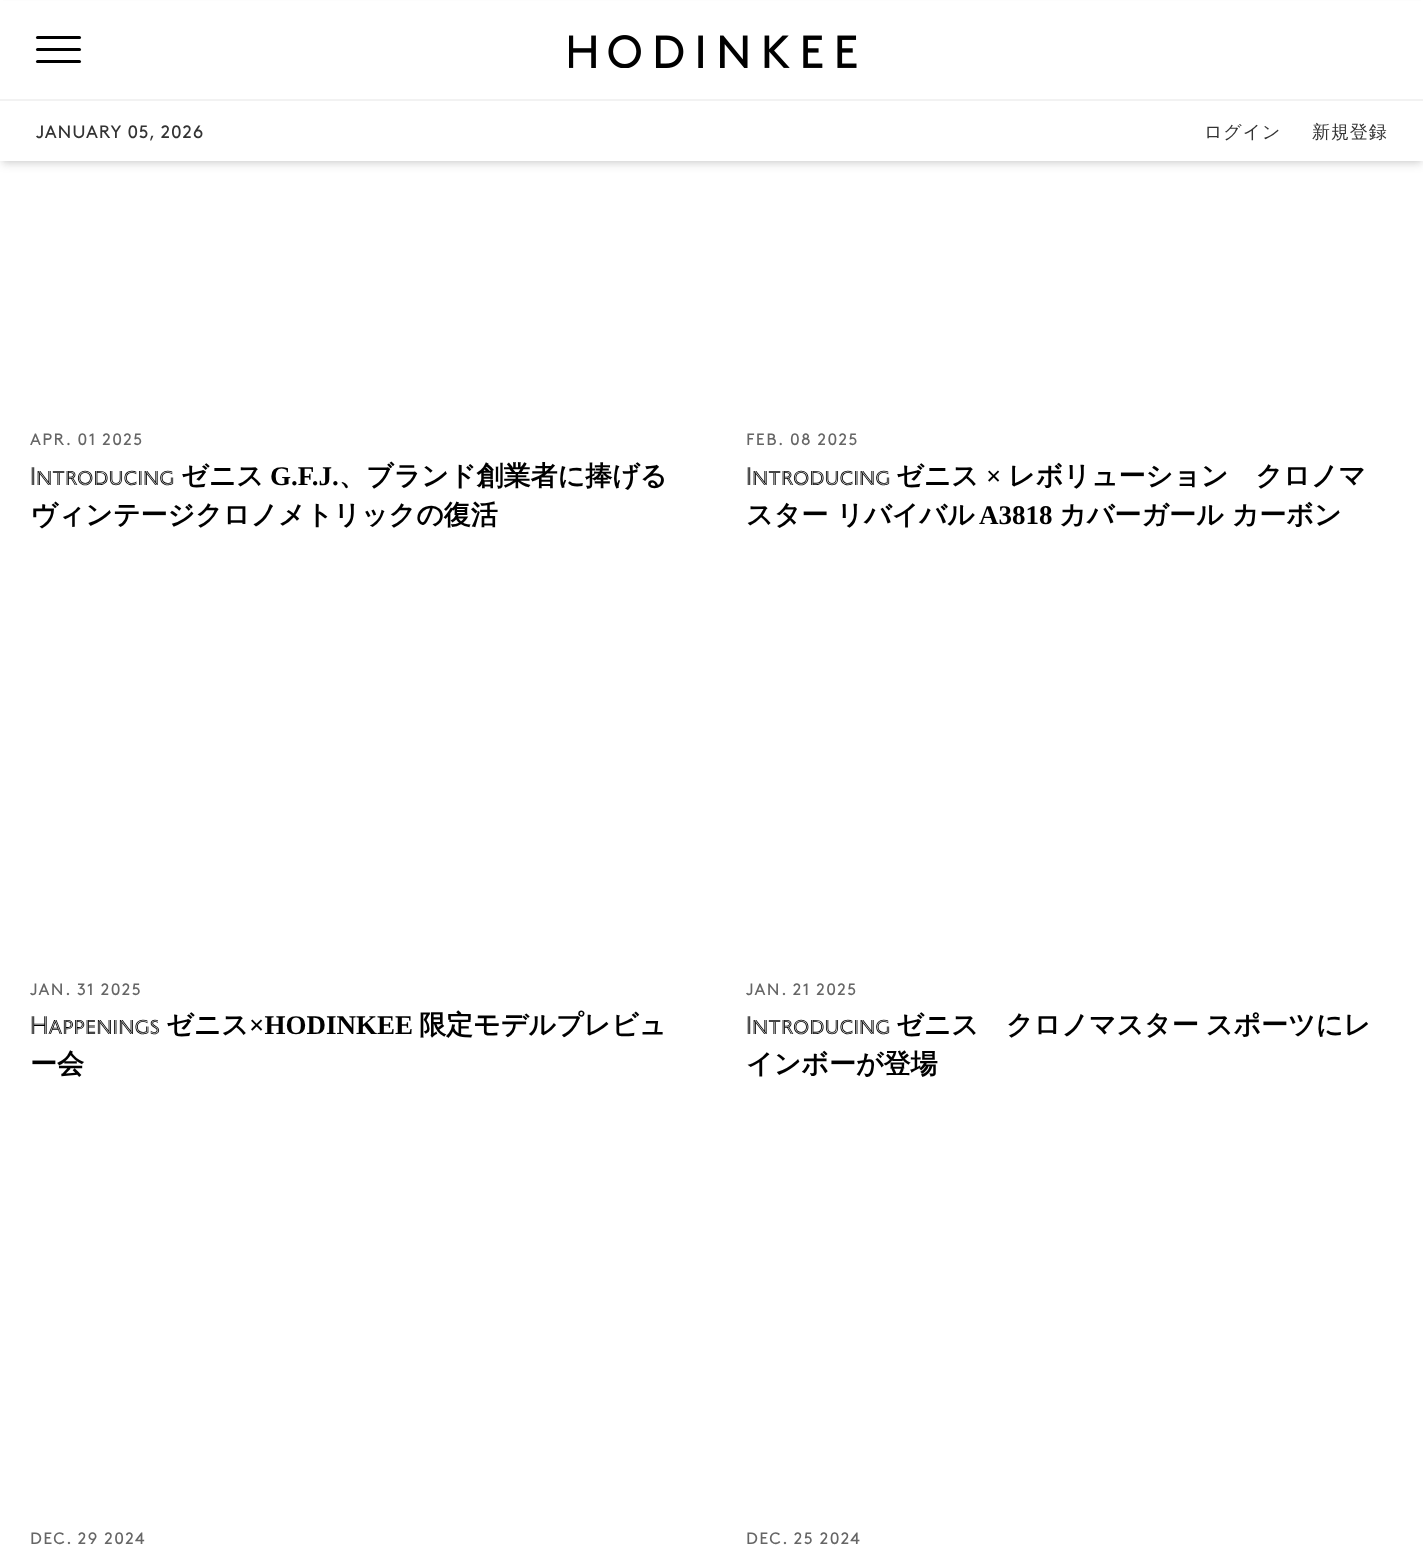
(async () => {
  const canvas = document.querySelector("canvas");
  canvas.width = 1423;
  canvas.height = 1564;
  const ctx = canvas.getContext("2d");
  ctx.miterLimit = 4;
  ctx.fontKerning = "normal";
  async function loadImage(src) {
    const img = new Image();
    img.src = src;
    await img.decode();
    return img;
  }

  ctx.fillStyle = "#ffffff";
  ctx.fillRect(0, 0, 1423, 1564);
  ctx.fillStyle = "rgba(0, 0, 0, 0.1)";
  ctx.filter = "blur(3px)";
  ctx.beginPath();
  ctx.rect(3, 6, 1418, 155);
  ctx.fill();
  ctx.filter = "none";
  ctx.filter = "blur(4.5px)";
  ctx.beginPath();
  ctx.rect(2, 8, 1420, 157);
  ctx.fill();
  ctx.filter = "none";
  ctx.fillStyle = "#ffffff";
  ctx.fillRect(0, 1, 1423, 160);
  ctx.fillStyle = "#000000";
  ctx.beginPath();
  ctx.roundRect(36, 48, 45, 3, 1.5);
  ctx.fill();
  ctx.beginPath();
  ctx.roundRect(36, 36, 45, 3, 1.5);
  ctx.fill();
  ctx.beginPath();
  ctx.roundRect(36, 60, 45, 3, 1.5);
  ctx.fill();
  ctx.drawImage(await loadImage("img/1.png"), 569, 35, 288, 33);
  ctx.fillStyle = "#f2f2f2";
  ctx.fillRect(0, 99, 1423, 2);
  ctx.letterSpacing = "0.9px";
  ctx.font = "18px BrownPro";
  ctx.fillStyle = "#333333";
  ctx.fillText("JANUARY 05, 2026", 36, 138);
  ctx.font = "500 18px WenQuanYi Zen Hei";
  ctx.fillText("ログイン", 1204, 138);
  ctx.fillText("新規登録", 1312, 138);
  ctx.letterSpacing = "1.4px";
  ctx.font = "16.5px BrownPro";
  ctx.fillStyle = "#666666";
  ctx.fillText("APR. 01 2025", 30, 445);
  ctx.letterSpacing = "0px";
  ctx.font = "27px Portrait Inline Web";
  ctx.fillStyle = "#000000";
  ctx.fillText("Introducing", 30, 485);
  ctx.font = "bold 27px WenQuanYi Zen Hei";
  ctx.fillText("ゼニス", 181, 485);
  ctx.font = "bold 27px Liberation Serif";
  ctx.fillText("G.F.J.", 270, 485);
  ctx.font = "bold 27px WenQuanYi Zen Hei";
  ctx.fillText("、ブランド創業者に捧げる", 339, 485);
  ctx.fillText("ヴィンテージクロノメトリックの復活", 30, 524);
  ctx.letterSpacing = "1.4px";
  ctx.font = "16.5px BrownPro";
  ctx.fillStyle = "#666666";
  ctx.fillText("FEB. 08 2025", 746, 445);
  ctx.letterSpacing = "0px";
  ctx.font = "27px Portrait Inline Web";
  ctx.fillStyle = "#000000";
  ctx.fillText("Introducing", 746, 485);
  ctx.font = "bold 27px WenQuanYi Zen Hei";
  ctx.fillText("ゼニス", 896, 485);
  ctx.font = "bold 27px Liberation Serif";
  ctx.fillText("×", 986, 485);
  ctx.font = "bold 27px WenQuanYi Zen Hei";
  ctx.fillText("レボリューション　クロノマ", 1008, 485);
  ctx.fillText("スター リバイバル", 746, 524);
  ctx.font = "bold 27px Liberation Serif";
  ctx.fillText("A3818", 979, 524);
  ctx.font = "bold 27px WenQuanYi Zen Hei";
  ctx.fillText("カバーガール カーボン", 1059, 524);
  ctx.letterSpacing = "1.4px";
  ctx.font = "16.5px BrownPro";
  ctx.fillStyle = "#666666";
  ctx.fillText("JAN. 31 2025", 30, 995);
  ctx.letterSpacing = "0px";
  ctx.font = "27px Portrait Inline Web";
  ctx.fillStyle = "#000000";
  ctx.fillText("Happenings", 30, 1034);
  ctx.font = "bold 27px WenQuanYi Zen Hei";
  ctx.fillText("ゼニス", 166, 1034);
  ctx.font = "bold 27px Liberation Serif";
  ctx.fillText("×HODINKEE", 249, 1034);
  ctx.font = "bold 27px WenQuanYi Zen Hei";
  ctx.fillText("限定モデルプレビュ", 419, 1034);
  ctx.fillText("ー会", 30, 1073);
  ctx.letterSpacing = "1.4px";
  ctx.font = "16.5px BrownPro";
  ctx.fillStyle = "#666666";
  ctx.fillText("JAN. 21 2025", 746, 995);
  ctx.letterSpacing = "0px";
  ctx.font = "27px Portrait Inline Web";
  ctx.fillStyle = "#000000";
  ctx.fillText("Introducing", 746, 1034);
  ctx.wordSpacing = "-1px";
  ctx.font = "bold 27px WenQuanYi Zen Hei";
  ctx.fillText("ゼニス　クロノマスター スポーツにレ", 896, 1034);
  ctx.wordSpacing = "0px";
  ctx.fillText("インボーが登場", 746, 1073);
  ctx.letterSpacing = "1.4px";
  ctx.font = "16.5px BrownPro";
  ctx.fillStyle = "#666666";
  ctx.fillText("DEC. 29 2024", 30, 1544);
  ctx.fillText("DEC. 25 2024", 746, 1544);
})();
